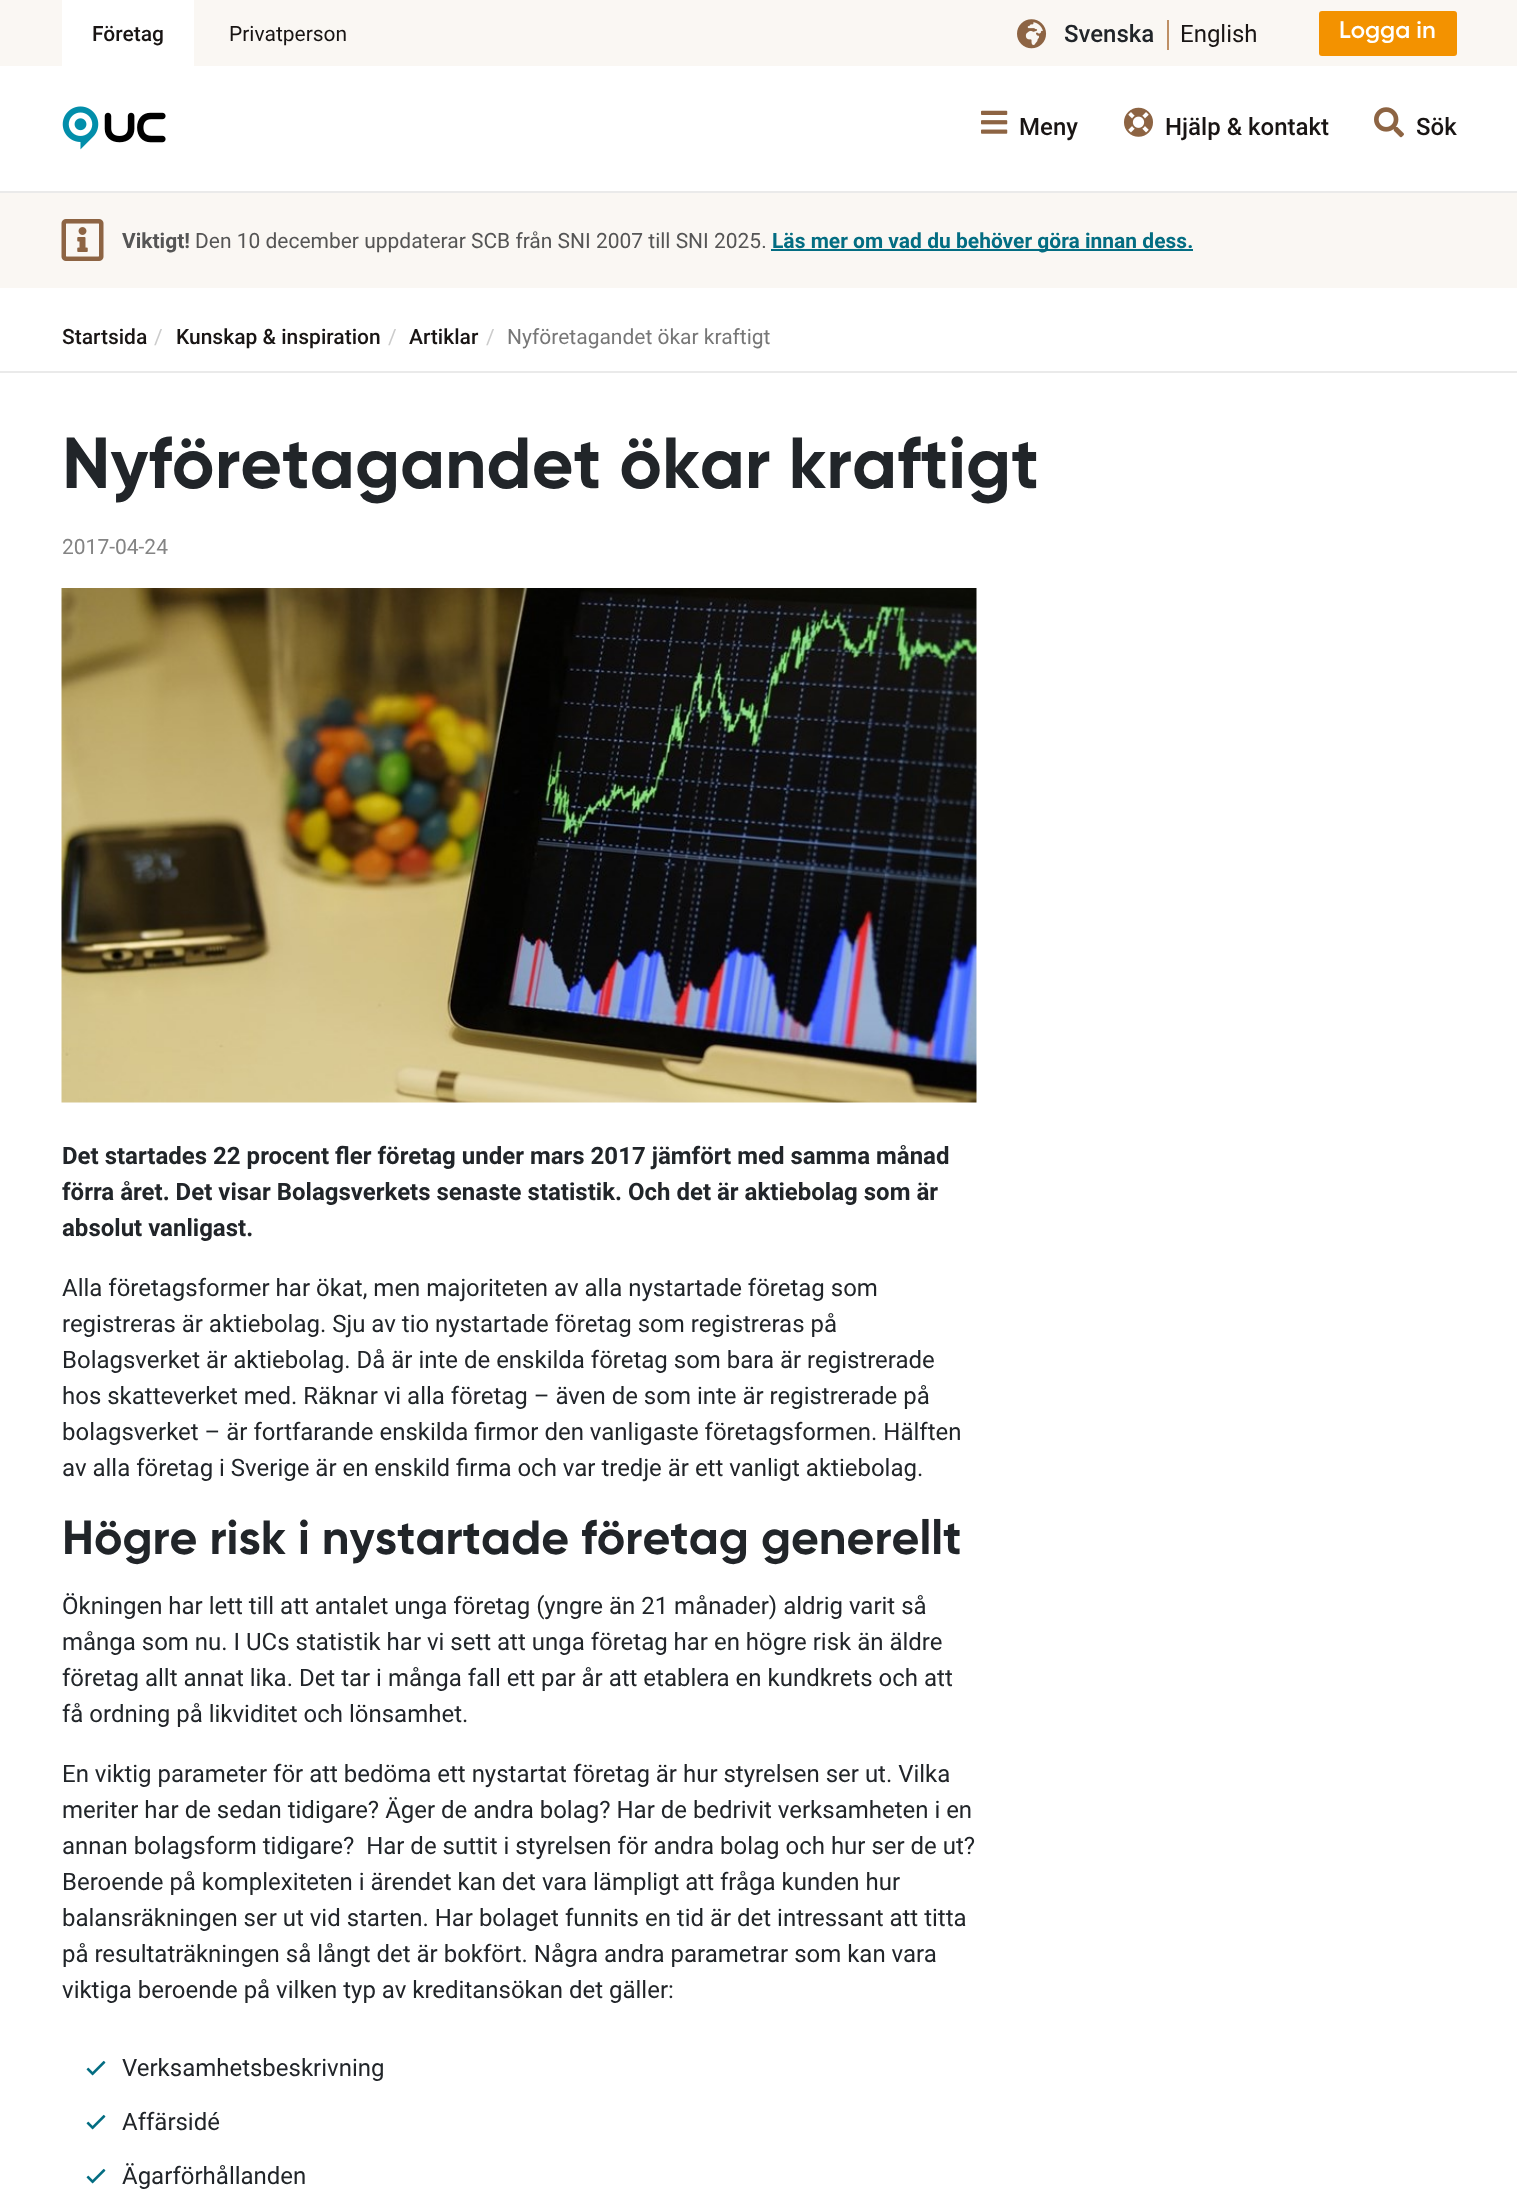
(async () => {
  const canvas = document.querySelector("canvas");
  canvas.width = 1517;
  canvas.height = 2199;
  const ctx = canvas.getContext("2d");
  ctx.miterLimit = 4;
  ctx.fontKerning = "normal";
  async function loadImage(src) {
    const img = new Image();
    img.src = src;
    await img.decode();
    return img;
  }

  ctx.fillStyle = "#ffffff";
  ctx.fillRect(0, 0, 1517, 2199);
  ctx.fillStyle = "#faf7f3";
  ctx.fillRect(0, 0, 1517, 66);
  ctx.fillStyle = "#ffffff";
  ctx.fillRect(62, 0, 132, 66);
  ctx.drawImage(await loadImage("img/1.png"), 1017, 19, 30, 30);
  ctx.fillStyle = "#be8f65";
  ctx.fillRect(1167, 20, 2, 30);
  ctx.fillStyle = "#f39200";
  ctx.beginPath();
  ctx.roundRect(1319, 11, 138, 45, 3);
  ctx.fill();
  ctx.fillStyle = "#eaeaea";
  ctx.fillRect(0, 191, 1517, 2);
  ctx.drawImage(await loadImage("img/2.png"), 62, 106, 104, 44);
  ctx.drawImage(await loadImage("img/3.png"), 981, 110, 27, 24);
  ctx.drawImage(await loadImage("img/4.png"), 1124, 107, 29, 30);
  ctx.drawImage(await loadImage("img/5.png"), 1374, 107, 30, 31);
  ctx.fillStyle = "#faf7f3";
  ctx.fillRect(0, 193, 1517, 95);
  ctx.drawImage(await loadImage("img/6.png"), 61, 219, 43, 42);
  ctx.fillStyle = "#036d82";
  ctx.fillRect(771, 249, 422, 2);
  ctx.fillStyle = "#eaeaea";
  ctx.fillRect(0, 371, 1517, 2);
  ctx.drawImage(await loadImage("img/7.png"), 61, 588, 916, 515);
  ctx.drawImage(await loadImage("img/8.png"), 86, 2060, 20, 16);
  ctx.drawImage(await loadImage("img/8.png"), 86, 2114, 20, 16);
  ctx.drawImage(await loadImage("img/8.png"), 86, 2168, 20, 16);
  ctx.font = "500 21px Roboto";
  ctx.fillStyle = "#191514";
  ctx.fillText("Företag", 92, 41);
  ctx.font = "21px Roboto";
  ctx.fillText("Privatperson", 229, 41);
  ctx.font = "500 24px Roboto";
  ctx.fillStyle = "#212529";
  ctx.fillText("Svenska", 1064, 42);
  ctx.font = "24px Roboto";
  ctx.fillStyle = "#191514";
  ctx.fillText("English", 1180, 42);
  ctx.font = "24px 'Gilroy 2'";
  ctx.fillStyle = "#ffffff";
  ctx.fillText("Logga in", 1339, 38);
  ctx.font = "500 24px Roboto";
  ctx.fillStyle = "#191514";
  for (const [text, x, y] of [
    ["Meny", 1019, 135],
    ["Hjälp & kontakt", 1165, 135],
    ["Sök", 1416, 135],
  ]) {
    ctx.fillText(text, x, y);
  }
  ctx.font = "bold 21px Roboto";
  ctx.fillStyle = "#555555";
  ctx.fillText("Viktigt!", 122, 248);
  ctx.font = "21px Roboto";
  ctx.fillText("Den 10 december uppdaterar SCB från SNI 2007 till SNI 2025.", 195, 248);
  ctx.font = "bold 21px Roboto";
  ctx.fillStyle = "#036d82";
  ctx.fillText("Läs mer om vad du behöver göra innan dess.", 772, 248);
  ctx.font = "500 21px Roboto";
  ctx.fillStyle = "#191514";
  ctx.fillText("Startsida", 62, 344);
  ctx.font = "21px Roboto";
  ctx.fillStyle = "#cccccc";
  ctx.fillText("/", 154, 344);
  ctx.font = "500 21px Roboto";
  ctx.fillStyle = "#191514";
  ctx.fillText("Kunskap & inspiration", 176, 344);
  ctx.font = "21px Roboto";
  ctx.fillStyle = "#cccccc";
  ctx.fillText("/", 388, 344);
  ctx.font = "500 21px Roboto";
  ctx.fillStyle = "#191514";
  ctx.fillText("Artiklar", 409, 344);
  ctx.font = "21px Roboto";
  ctx.fillStyle = "#cccccc";
  ctx.fillText("/", 486, 344);
  ctx.fillStyle = "#777777";
  ctx.fillText("Nyföretagandet ökar kraftigt", 507, 344);
  ctx.font = "72px Gilroy";
  ctx.fillStyle = "#212529";
  ctx.fillText("Nyföretagandet ökar kraftigt", 62, 488);
  ctx.font = "21px Roboto";
  ctx.fillStyle = "#848484";
  ctx.fillText("2017-04-24", 62, 554);
  ctx.font = "bold 24px Roboto";
  ctx.fillStyle = "#212529";
  for (const [text, x, y] of [
    ["Det startades 22 procent fler företag under mars 2017 jämfört med samma månad", 62, 1164],
    ["förra året. Det visar Bolagsverkets senaste statistik. Och det är aktiebolag som är", 62, 1200],
    ["absolut vanligast.", 62, 1236],
  ]) {
    ctx.fillText(text, x, y);
  }
  ctx.font = "24px Roboto";
  for (const [text, x, y] of [
    ["Alla företagsformer har ökat, men majoriteten av alla nystartade företag som", 62, 1296],
    ["registreras är aktiebolag. Sju av tio nystartade företag som registreras på", 62, 1332],
    ["Bolagsverket är aktiebolag. Då är inte de enskilda företag som bara är registrerade", 62, 1368],
    ["hos skatteverket med. Räknar vi alla företag – även de som inte är registrerade på", 62, 1404],
    ["bolagsverket – är fortfarande enskilda firmor den vanligaste företagsformen. Hälften", 62, 1440],
    ["av alla företag i Sverige är en enskild firma och var tredje är ett vanligt aktiebolag.", 62, 1476],
  ]) {
    ctx.fillText(text, x, y);
  }
  ctx.font = "48px Gilroy";
  ctx.fillText("Högre risk i nystartade företag generellt", 62, 1554);
  ctx.font = "24px Roboto";
  for (const [text, x, y] of [
    ["Ökningen har lett till att antalet unga företag (yngre än 21 månader) aldrig varit så", 62, 1614],
    ["många som nu. I UCs statistik har vi sett att unga företag har en högre risk än äldre", 62, 1650],
    ["företag allt annat lika. Det tar i många fall ett par år att etablera en kundkrets och att", 62, 1686],
    ["få ordning på likviditet och lönsamhet.", 62, 1722],
    ["En viktig parameter för att bedöma ett nystartat företag är hur styrelsen ser ut. Vilka", 62, 1782],
    ["meriter har de sedan tidigare? Äger de andra bolag? Har de bedrivit verksamheten i en", 62, 1818],
    ["annan bolagsform tidigare?  Har de suttit i styrelsen för andra bolag och hur ser de ut?", 62, 1854],
    ["Beroende på komplexiteten i ärendet kan det vara lämpligt att fråga kunden hur", 62, 1890],
    ["balansräkningen ser ut vid starten. Har bolaget funnits en tid är det intressant att titta", 62, 1926],
    ["på resultaträkningen så långt det är bokfört. Några andra parametrar som kan vara", 62, 1962],
    ["viktiga beroende på vilken typ av kreditansökan det gäller:", 62, 1998],
    ["Verksamhetsbeskrivning", 122, 2076],
    ["Affärsidé", 122, 2130],
    ["Ägarförhållanden", 122, 2184],
  ]) {
    ctx.fillText(text, x, y);
  }
})();
